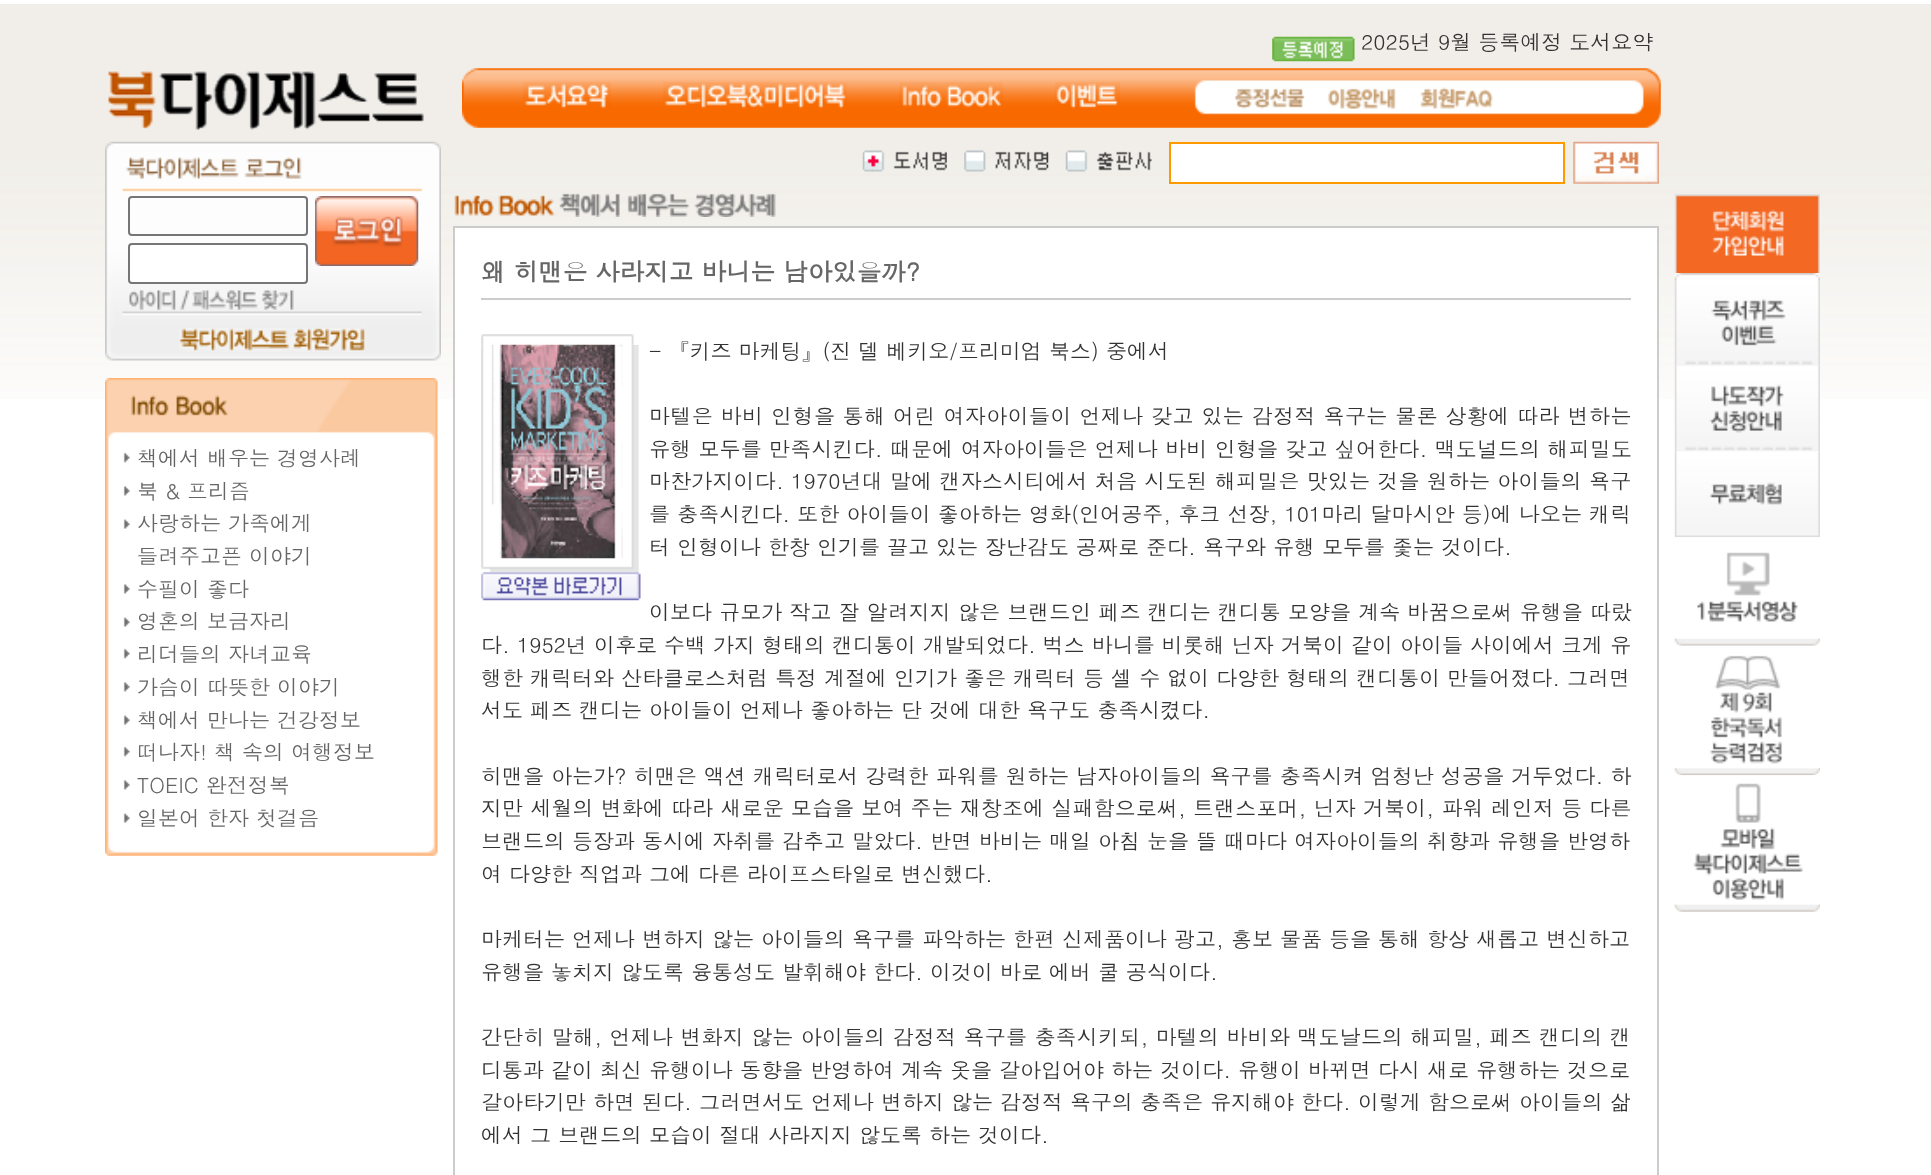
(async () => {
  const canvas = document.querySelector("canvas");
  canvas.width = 1931;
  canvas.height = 1175;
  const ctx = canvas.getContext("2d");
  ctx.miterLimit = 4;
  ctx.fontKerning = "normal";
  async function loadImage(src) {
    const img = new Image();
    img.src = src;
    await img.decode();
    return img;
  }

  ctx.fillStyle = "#ffffff";
  ctx.fillRect(0, 0, 1931, 1175);
  ctx.drawImage(await loadImage("img/1.png"), 0, 4, 1931, 395);
  ctx.drawImage(await loadImage("img/2.png"), 1272, 36, 83, 26);
  ctx.drawImage(await loadImage("img/3.png"), 108, 71, 316, 59);
  ctx.drawImage(await loadImage("img/4.png"), 462, 68, 1199, 60);
  ctx.drawImage(await loadImage("img/5.png"), 523, 82, 88, 27);
  ctx.drawImage(await loadImage("img/6.png"), 663, 82, 184, 27);
  ctx.drawImage(await loadImage("img/7.png"), 899, 82, 104, 26);
  ctx.drawImage(await loadImage("img/8.png"), 1055, 82, 65, 27);
  ctx.drawImage(await loadImage("img/9.png"), 1235, 88, 70, 21);
  ctx.drawImage(await loadImage("img/10.png"), 1327, 88, 69, 21);
  ctx.drawImage(await loadImage("img/11.png"), 1420, 87, 73, 22);
  ctx.drawImage(await loadImage("img/12.png"), 105, 141, 336, 220);
  ctx.beginPath();
  ctx.roundRect(129, 197, 178, 38, 3);
  ctx.strokeStyle = "#767676";
  ctx.lineWidth = 2;
  ctx.stroke();
  ctx.drawImage(await loadImage("img/13.png"), 315, 196, 104, 70);
  ctx.beginPath();
  ctx.roundRect(129, 244, 178, 39, 3);
  ctx.fill();
  ctx.stroke();
  ctx.drawImage(await loadImage("img/14.png"), 129, 290, 165, 20);
  ctx.drawImage(await loadImage("img/15.png"), 179, 328, 186, 24);
  ctx.drawImage(await loadImage("img/16.png"), 105, 378, 333, 63);
  ctx.drawImage(await loadImage("img/17.png"), 105, 441, 333, 392);
  ctx.drawImage(await loadImage("img/18.png"), 123, 452, 7, 11);
  ctx.drawImage(await loadImage("img/19.png"), 123, 486, 7, 10);
  ctx.drawImage(await loadImage("img/20.png"), 123, 519, 7, 10);
  ctx.drawImage(await loadImage("img/19.png"), 123, 584, 7, 10);
  ctx.drawImage(await loadImage("img/20.png"), 123, 617, 7, 10);
  ctx.drawImage(await loadImage("img/18.png"), 123, 648, 7, 11);
  ctx.drawImage(await loadImage("img/19.png"), 123, 682, 7, 10);
  ctx.drawImage(await loadImage("img/20.png"), 123, 715, 7, 10);
  ctx.drawImage(await loadImage("img/18.png"), 123, 746, 7, 11);
  ctx.drawImage(await loadImage("img/19.png"), 123, 780, 7, 10);
  ctx.drawImage(await loadImage("img/20.png"), 123, 813, 7, 10);
  ctx.drawImage(await loadImage("img/21.png"), 105, 833, 333, 23);
  ctx.drawImage(await loadImage("img/22.png"), 862, 150, 85, 22);
  ctx.drawImage(await loadImage("img/23.png"), 964, 150, 85, 22);
  ctx.drawImage(await loadImage("img/24.png"), 1065, 150, 87, 22);
  ctx.beginPath();
  ctx.rect(1170, 143, 394, 40);
  ctx.fill();
  ctx.strokeStyle = "#ff9900";
  ctx.stroke();
  ctx.drawImage(await loadImage("img/25.png"), 1573, 141, 86, 43);
  ctx.fillStyle = "#cccccc";
  ctx.fillRect(453, 226, 1206, 2);
  ctx.drawImage(await loadImage("img/26.png"), 454, 193, 322, 24);
  for (const [x, y, w, h, color] of [
    [455, 228, 1202, 171, "#ffffff"],
    [1657, 228, 2, 947, "#cccccc"],
    [453, 228, 2, 947, "#cccccc"],
    [481, 298, 1150, 2, "#cccccc"],
  ]) {
    ctx.fillStyle = color;
    ctx.fillRect(x, y, w, h);
  }
  ctx.drawImage(await loadImage("img/28.png"), 481, 344, 158, 229);
  ctx.drawImage(await loadImage("img/27.png"), 481, 334, 157, 11);
  ctx.drawImage(await loadImage("img/29.png"), 491, 344, 132, 215);
  ctx.drawImage(await loadImage("img/30.png"), 481, 572, 160, 29);
  ctx.drawImage(await loadImage("img/31.png"), 1674, 194, 146, 79);
  ctx.drawImage(await loadImage("img/32.png"), 1674, 273, 146, 7);
  ctx.drawImage(await loadImage("img/33.png"), 1674, 280, 146, 86);
  ctx.drawImage(await loadImage("img/34.png"), 1674, 366, 146, 86);
  ctx.drawImage(await loadImage("img/35.png"), 1674, 451, 146, 87);
  ctx.drawImage(await loadImage("img/36.png"), 1674, 537, 146, 109);
  ctx.drawImage(await loadImage("img/37.png"), 1674, 645, 146, 131);
  ctx.drawImage(await loadImage("img/38.png"), 1674, 775, 146, 137);
  ctx.font = "21px Dotum";
  ctx.fillStyle = "#333333";
  ctx.fillText("2025년 9월 등록예정 도서요약", 1361, 50);
  ctx.fillStyle = "#666666";
  for (const [text, x, y] of [
    ["책에서 배우는 경영사례", 137, 466],
    ["북 & 프리즘", 137, 499],
    ["사랑하는 가족에게", 137, 531],
    ["들려주고픈 이야기", 137, 564],
    ["수필이 좋다", 137, 597],
    ["영혼의 보금자리", 137, 629],
    ["리더들의 자녀교육", 137, 662],
    ["가슴이 따뜻한 이야기", 137, 695],
    ["책에서 만나는 건강정보", 137, 728],
    ["떠나자! 책 속의 여행정보", 137, 760],
    ["TOEIC 완전정복", 137, 793],
    ["일본어 한자 첫걸음", 137, 826],
  ]) {
    ctx.fillText(text, x, y);
  }
  ctx.font = "bold 24.5px Dotum";
  ctx.fillText("왜 히맨은 사라지고 바니는 남아있을까?", 481, 281);
  ctx.font = "21px Dotum";
  ctx.fillStyle = "#333333";
  ctx.fillText("- 『키즈 마케팅』(진 델 베키오/프리미엄 북스) 중에서", 649, 359);
  ctx.letterSpacing = "0.43px";
  ctx.fillText("마텔은 바비 인형을 통해 어린 여자아이들이 언제나 갖고 있는 감정적 욕구는 물론 상황에 따라 변하는", 649, 424);
  ctx.letterSpacing = "0.15px";
  ctx.fillText("유행 모두를 만족시킨다. 때문에 여자아이들은 언제나 바비 인형을 갖고 싶어한다. 맥도널드의 해피밀도", 649, 457);
  ctx.fillText("마찬가지이다. 1970년대 말에 캔자스시티에서 처음 시도된 해피밀은 맛있는 것을 원하는 아이들의 욕구", 649, 489);
  ctx.letterSpacing = "0.05px";
  ctx.fillText("를 충족시킨다. 또한 아이들이 좋아하는 영화(인어공주, 후크 선장, 101마리 달마시안 등)에 나오는 캐릭", 649, 522);
  ctx.letterSpacing = "0px";
  ctx.fillText("터 인형이나 한창 인기를 끌고 있는 장난감도 공짜로 준다. 욕구와 유행 모두를 좇는 것이다.", 649, 555);
  ctx.letterSpacing = "0.05px";
  ctx.fillText("이보다 규모가 작고 잘 알려지지 않은 브랜드인 페즈 캔디는 캔디통 모양을 계속 바꿈으로써 유행을 따랐", 649, 620);
  ctx.letterSpacing = "0px";
  for (const [text, x, y] of [
    ["다. 1952년 이후로 수백 가지 형태의 캔디통이 개발되었다. 벅스 바니를 비롯해 닌자 거북이 같이 아이들 사이에서 크게 유", 481, 653],
    ["행한 캐릭터와 산타클로스처럼 특정 계절에 인기가 좋은 캐릭터 등 셀 수 없이 다양한 형태의 캔디통이 만들어졌다. 그러면", 481, 686],
    ["서도 페즈 캔디는 아이들이 언제나 좋아하는 단 것에 대한 욕구도 충족시켰다.", 481, 718],
  ]) {
    ctx.fillText(text, x, y);
  }
  ctx.letterSpacing = "0.05px";
  ctx.fillText("히맨을 아는가? 히맨은 액션 캐릭터로서 강력한 파워를 원하는 남자아이들의 욕구를 충족시켜 엄청난 성공을 거두었다. 하", 481, 784);
  ctx.letterSpacing = "0.1px";
  ctx.fillText("지만 세월의 변화에 따라 새로운 모습을 보여 주는 재창조에 실패함으로써, 트랜스포머, 닌자 거북이, 파워 레인저 등 다른", 481, 816);
  ctx.letterSpacing = "0px";
  for (const [text, x, y] of [
    ["브랜드의 등장과 동시에 자취를 감추고 말았다. 반면 바비는 매일 아침 눈을 뜰 때마다 여자아이들의 취향과 유행을 반영하", 481, 849],
    ["여 다양한 직업과 그에 다른 라이프스타일로 변신했다.", 481, 882],
    ["마케터는 언제나 변하지 않는 아이들의 욕구를 파악하는 한편 신제품이나 광고, 홍보 물품 등을 통해 항상 새롭고 변신하고", 481, 947],
    ["유행을 놓치지 않도록 융통성도 발휘해야 한다. 이것이 바로 에버 쿨 공식이다.", 481, 980],
  ]) {
    ctx.fillText(text, x, y);
  }
  ctx.letterSpacing = "0.2px";
  ctx.fillText("간단히 말해, 언제나 변화지 않는 아이들의 감정적 욕구를 충족시키되, 마텔의 바비와 맥도날드의 해피밀, 페즈 캔디의 캔", 481, 1045);
  ctx.letterSpacing = "0px";
  for (const [text, x, y] of [
    ["디통과 같이 최신 유행이나 동향을 반영하여 계속 옷을 갈아입어야 하는 것이다. 유행이 바뀌면 다시 새로 유행하는 것으로", 481, 1078],
    ["갈아타기만 하면 된다. 그러면서도 언제나 변하지 않는 감정적 욕구의 충족은 유지해야 한다. 이렇게 함으로써 아이들의 삶", 481, 1110],
    ["에서 그 브랜드의 모습이 절대 사라지지 않도록 하는 것이다.", 481, 1143],
  ]) {
    ctx.fillText(text, x, y);
  }
})();
